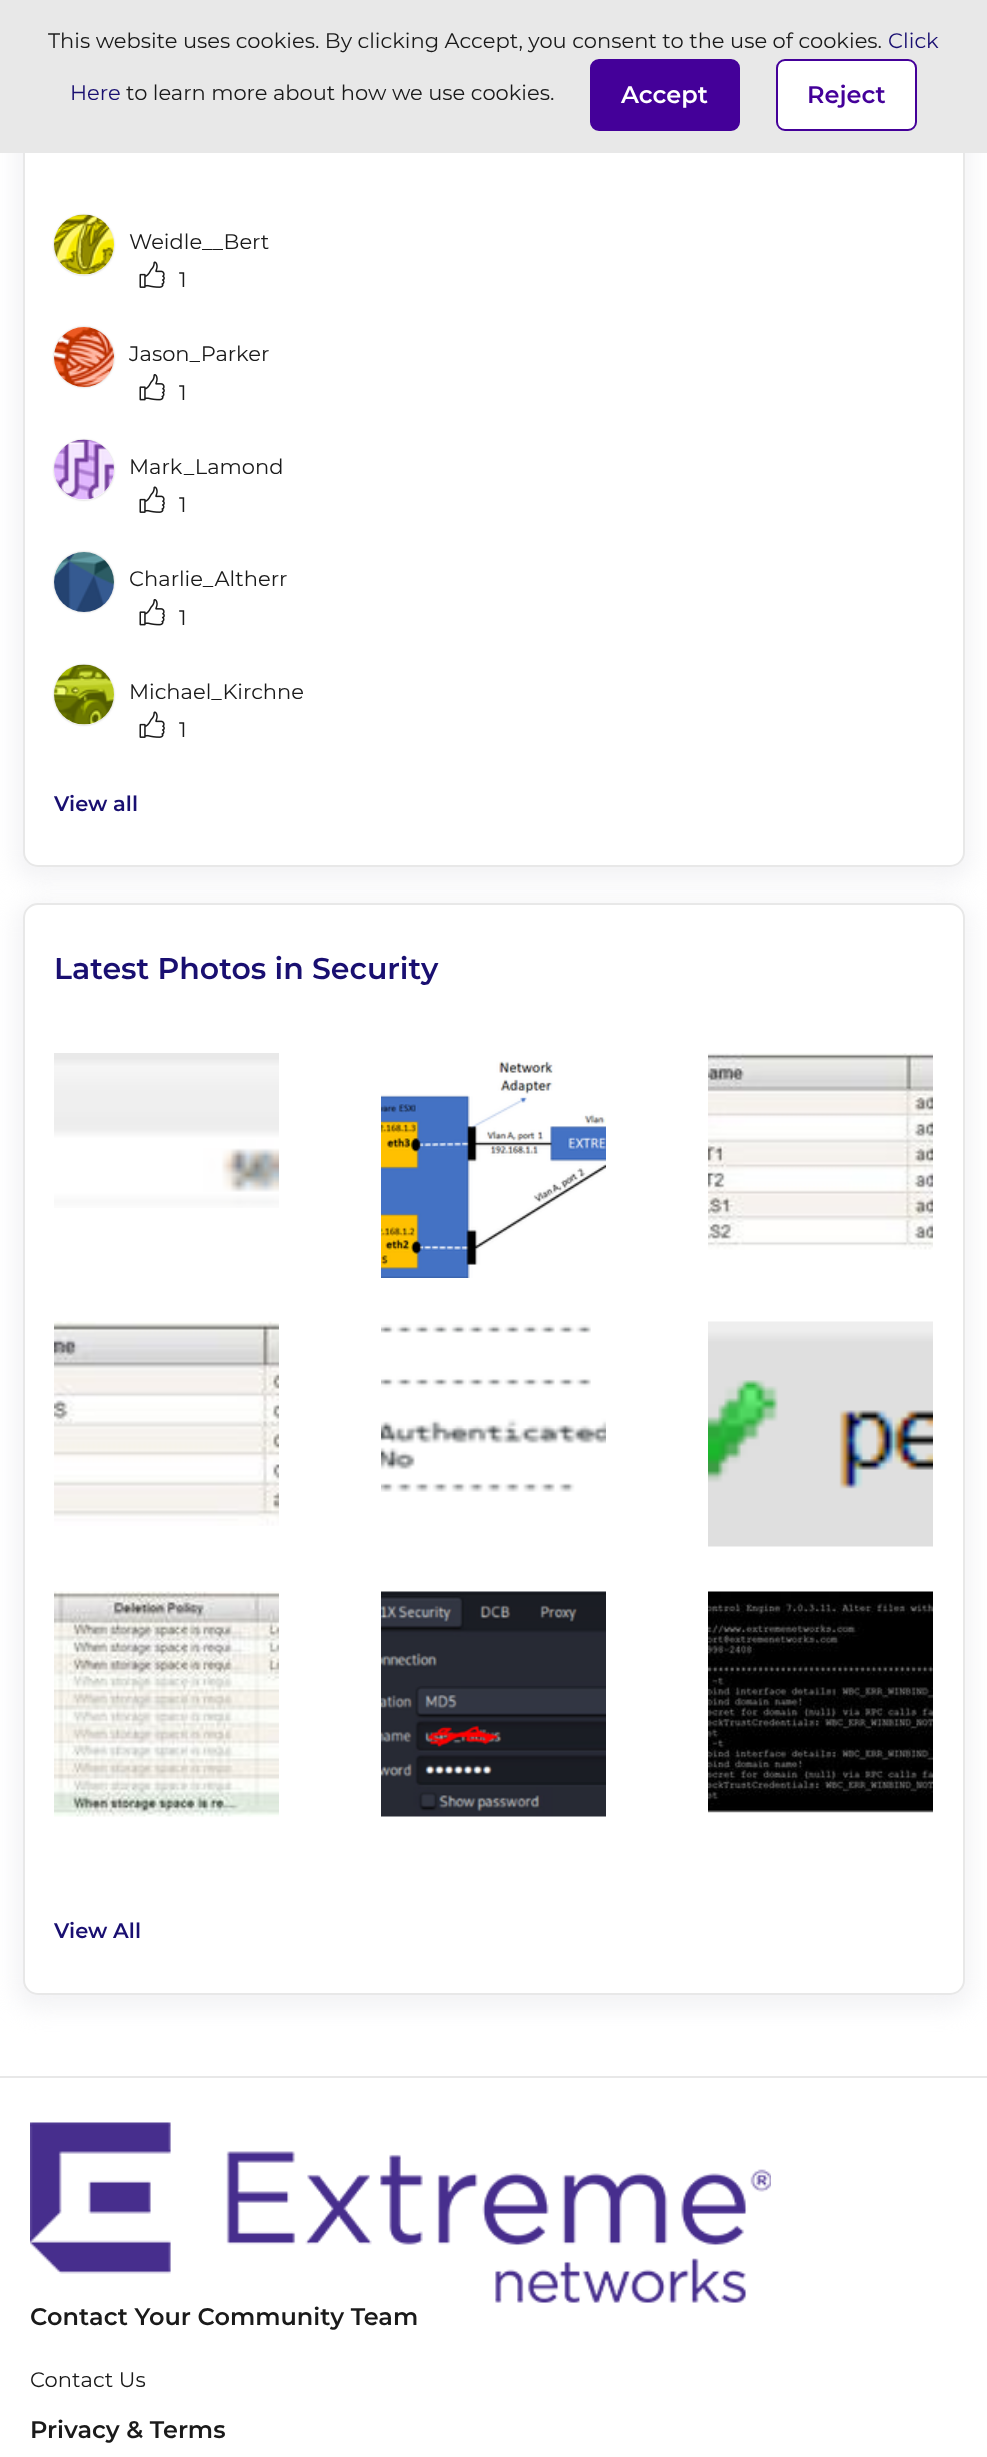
(async () => {
  const canvas = document.querySelector("canvas");
  canvas.width = 987;
  canvas.height = 2457;
  const ctx = canvas.getContext("2d");
  ctx.miterLimit = 4;
  ctx.fontKerning = "normal";
  async function loadImage(src) {
    const img = new Image();
    img.src = src;
    await img.decode();
    return img;
  }
  let path;

  ctx.fillStyle = "#ffffff";
  ctx.fillRect(0, 0, 987, 2457);
  ctx.fillStyle = "rgba(231, 232, 236, 0.5)";
  ctx.filter = "blur(11px)";
  ctx.beginPath();
  ctx.roundRect(15, 78, 957, 803, 23);
  ctx.fill();
  ctx.filter = "none";
  ctx.fillStyle = "#ffffff";
  ctx.beginPath();
  ctx.roundRect(24, 81, 940, 785, 14);
  ctx.fill();
  ctx.strokeStyle = "#e8e8e8";
  ctx.lineWidth = 2;
  ctx.stroke();
  ctx.fillStyle = "#e8e8e8";
  ctx.fillRect(0, 0, 987, 153);
  ctx.fillStyle = "#440099";
  ctx.beginPath();
  ctx.roundRect(591, 60, 148, 70, 8);
  ctx.fill();
  ctx.strokeStyle = "#440099";
  ctx.stroke();
  ctx.fillStyle = "#ffffff";
  ctx.beginPath();
  ctx.roundRect(777, 60, 139, 70, 8);
  ctx.fill();
  ctx.stroke();
  ctx.save();
  path = new Path2D("M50 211H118V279H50ZM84 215C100.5 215 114 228.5 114 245C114 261.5 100.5 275 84 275C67.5 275 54 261.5 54 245C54 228.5 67.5 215 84 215Z");
  ctx.clip(path, "evenodd");
  ctx.fillStyle = "#c4c4c4";
  ctx.filter = "blur(1px)";
  ctx.beginPath();
  ctx.roundRect(54, 215, 60, 60, 30);
  ctx.fill();
  ctx.filter = "none";
  ctx.restore();
  ctx.drawImage(await loadImage("img/1.png"), 54, 214, 60, 61);
  ctx.drawImage(await loadImage("img/2.png"), 139, 261, 26, 27);
  ctx.save();
  path = new Path2D("M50 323H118V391H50ZM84 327C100.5 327 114 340.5 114 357C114 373.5 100.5 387 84 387C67.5 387 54 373.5 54 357C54 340.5 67.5 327 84 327Z");
  ctx.clip(path, "evenodd");
  ctx.fillStyle = "#c4c4c4";
  ctx.filter = "blur(1px)";
  ctx.beginPath();
  ctx.roundRect(54, 327, 60, 60, 30);
  ctx.fill();
  ctx.filter = "none";
  ctx.restore();
  ctx.drawImage(await loadImage("img/3.png"), 54, 327, 60, 60);
  ctx.drawImage(await loadImage("img/4.png"), 139, 374, 26, 27);
  ctx.save();
  path = new Path2D("M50 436H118V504H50ZM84 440C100.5 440 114 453.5 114 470C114 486.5 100.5 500 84 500C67.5 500 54 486.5 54 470C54 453.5 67.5 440 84 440Z");
  ctx.clip(path, "evenodd");
  ctx.fillStyle = "#c4c4c4";
  ctx.filter = "blur(1px)";
  ctx.beginPath();
  ctx.roundRect(54, 440, 60, 60, 30);
  ctx.fill();
  ctx.filter = "none";
  ctx.restore();
  ctx.drawImage(await loadImage("img/5.png"), 54, 439, 60, 61);
  ctx.drawImage(await loadImage("img/2.png"), 139, 486, 26, 27);
  ctx.save();
  path = new Path2D("M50 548H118V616H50ZM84 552C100.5 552 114 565.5 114 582C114 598.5 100.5 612 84 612C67.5 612 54 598.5 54 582C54 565.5 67.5 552 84 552Z");
  ctx.clip(path, "evenodd");
  ctx.fillStyle = "#c4c4c4";
  ctx.filter = "blur(1px)";
  ctx.beginPath();
  ctx.roundRect(54, 552, 60, 60, 30);
  ctx.fill();
  ctx.filter = "none";
  ctx.restore();
  ctx.drawImage(await loadImage("img/6.png"), 54, 552, 60, 60);
  ctx.drawImage(await loadImage("img/4.png"), 139, 599, 26, 27);
  ctx.save();
  path = new Path2D("M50 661H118V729H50ZM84 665C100.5 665 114 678.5 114 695C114 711.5 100.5 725 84 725C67.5 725 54 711.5 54 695C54 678.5 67.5 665 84 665Z");
  ctx.clip(path, "evenodd");
  ctx.fillStyle = "#c4c4c4";
  ctx.filter = "blur(1px)";
  ctx.beginPath();
  ctx.roundRect(54, 665, 60, 60, 30);
  ctx.fill();
  ctx.filter = "none";
  ctx.restore();
  ctx.drawImage(await loadImage("img/7.png"), 54, 664, 60, 61);
  ctx.drawImage(await loadImage("img/2.png"), 139, 711, 26, 27);
  ctx.fillStyle = "rgba(231, 232, 236, 0.5)";
  ctx.filter = "blur(11px)";
  ctx.beginPath();
  ctx.roundRect(15, 902, 957, 1107, 23);
  ctx.fill();
  ctx.filter = "none";
  ctx.fillStyle = "#ffffff";
  ctx.beginPath();
  ctx.roundRect(24, 904, 940, 1090, 14);
  ctx.fill();
  ctx.strokeStyle = "#e8e8e8";
  ctx.stroke();
  ctx.drawImage(await loadImage("img/8.png"), 54, 1053, 225, 155);
  ctx.drawImage(await loadImage("img/9.png"), 381, 1061, 225, 217);
  ctx.drawImage(await loadImage("img/10.png"), 708, 1053, 225, 197);
  ctx.drawImage(await loadImage("img/11.png"), 54, 1321, 225, 205);
  ctx.drawImage(await loadImage("img/12.png"), 381, 1324, 225, 168);
  ctx.drawImage(await loadImage("img/13.png"), 708, 1321, 225, 226);
  ctx.drawImage(await loadImage("img/14.png"), 54, 1591, 225, 226);
  ctx.drawImage(await loadImage("img/15.png"), 381, 1591, 225, 226);
  ctx.drawImage(await loadImage("img/16.png"), 708, 1591, 225, 222);
  ctx.fillStyle = "#e8e8e8";
  ctx.fillRect(0, 2076, 987, 2);
  ctx.drawImage(await loadImage("img/17.png"), 30, 2122, 741, 181);
  ctx.font = "100 21px 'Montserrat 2'";
  ctx.fillStyle = "#1a1a1a";
  ctx.fillText("This website uses cookies. By clicking Accept, you consent to the use of cookies.", 48, 48);
  ctx.fillStyle = "#190f71";
  ctx.fillText("Click", 888, 48);
  ctx.fillText("Here", 70, 100);
  ctx.fillStyle = "#1a1a1a";
  ctx.fillText("to learn more about how we use cookies.", 126, 100);
  ctx.font = "100 24px Montserrat";
  ctx.fillStyle = "#ffffff";
  ctx.fillText("Accept", 621, 103);
  ctx.fillStyle = "#440099";
  ctx.fillText("Reject", 807, 103);
  ctx.font = "100 21px 'Montserrat 2'";
  ctx.fillStyle = "#1a1a1a";
  for (const [text, x, y] of [
    ["Weidle__Bert", 129, 249],
    ["1", 179, 287],
    ["Jason_Parker", 129, 361],
    ["1", 179, 400],
    ["Mark_Lamond", 129, 474],
    ["1", 179, 512],
    ["Charlie_Altherr", 129, 586],
    ["1", 179, 625],
    ["Michael_Kirchne", 129, 699],
    ["1", 179, 737],
  ]) {
    ctx.fillText(text, x, y);
  }
  ctx.font = "100 21px Montserrat";
  ctx.fillStyle = "#190f71";
  ctx.fillText("View all", 54, 811);
  ctx.font = "100 30px Montserrat";
  ctx.fillText("Latest Photos in Security", 54, 979);
  ctx.font = "100 21px Montserrat";
  ctx.fillText("View All", 54, 1938);
  ctx.font = "100 24px Montserrat";
  ctx.fillStyle = "#1a1a1a";
  ctx.fillText("Contact Your Community Team", 30, 2325);
  ctx.font = "100 21px 'Montserrat 2'";
  ctx.fillText("Contact Us", 30, 2387);
  ctx.font = "100 24px Montserrat";
  ctx.fillText("Privacy & Terms", 30, 2438);
})();
